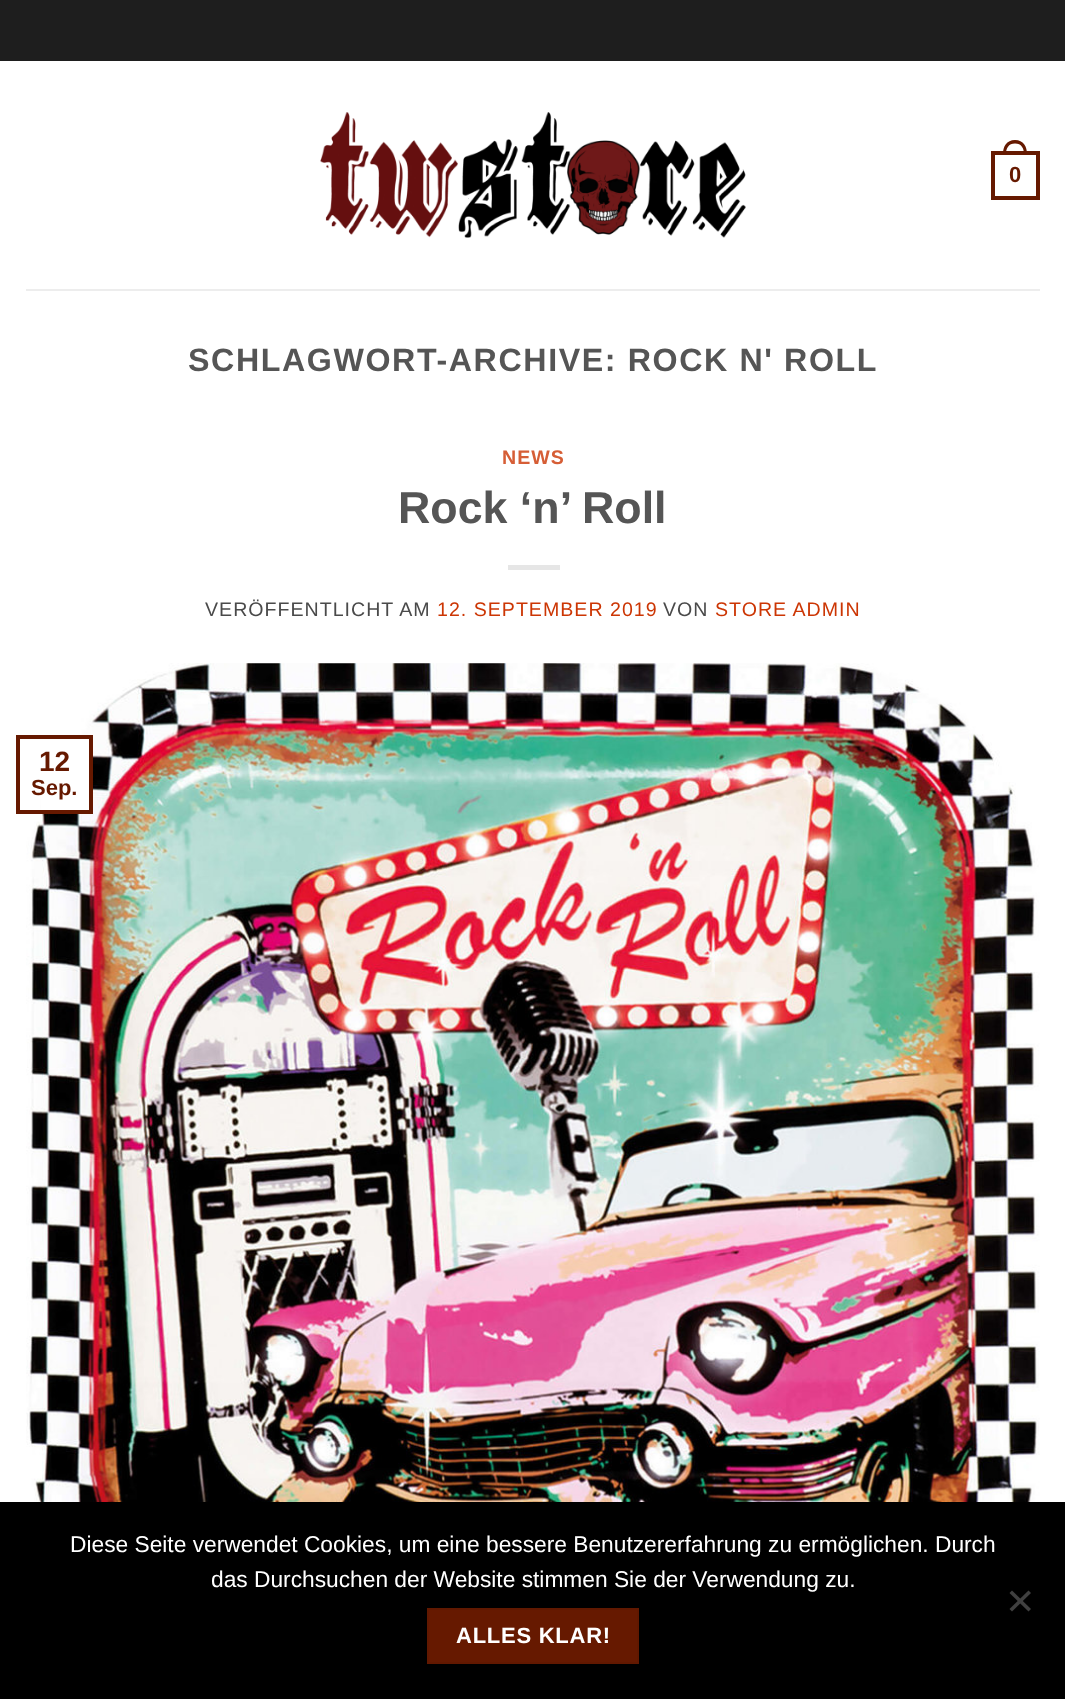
(async () => {
  const canvas = document.querySelector("canvas");
  canvas.width = 1065;
  canvas.height = 1699;
  const ctx = canvas.getContext("2d");
  ctx.miterLimit = 4;
  ctx.fontKerning = "normal";
  async function loadImage(src) {
    const img = new Image();
    img.src = src;
    await img.decode();
    return img;
  }
  let path;

  ctx.fillStyle = "#ffffff";
  ctx.fillRect(0, 0, 1065, 1699);
  ctx.fillStyle = "#1e1e1e";
  ctx.fillRect(0, 0, 1065, 61);
  ctx.drawImage(await loadImage("img/1.png"), 320, 112, 426, 126);
  ctx.strokeStyle = "#661900";
  ctx.lineWidth = 4;
  ctx.strokeRect(993, 153, 45, 45);
  ctx.fillStyle = "#661900";
  path = new Path2D("M1015 140C1023.5 140 1027 146.5 1027 154H1003C1003 146.5 1006.5 140 1015 140ZM1015 143.5C1021.5 143.5 1024 148.5 1024 154H1006C1006 148.5 1008.5 143.5 1015 143.5Z");
  ctx.fill(path, "evenodd");
  ctx.fillStyle = "#ededed";
  ctx.fillRect(26, 289, 1014, 2);
  ctx.fillStyle = "#e6e6e6";
  ctx.fillRect(508, 565, 52, 5);
  ctx.drawImage(await loadImage("img/2.png"), 26, 663, 1014, 839);
  ctx.fillStyle = "#ffffff";
  ctx.fillRect(41, 739, 48, 71);
  ctx.strokeRect(18, 737, 73, 75);
  ctx.fillStyle = "#000000";
  ctx.fillRect(0, 1502, 1065, 197);
  ctx.fillStyle = "#404040";
  path = new Path2D("M1028.5 1590.5L1031 1593L1012 1611.5L1009.5 1609Z");
  ctx.fill(path);
  path = new Path2D("M1009.5 1593L1012 1590.5L1031 1609L1028.5 1611.5Z");
  ctx.fill(path);
  ctx.fillStyle = "#661900";
  ctx.beginPath();
  ctx.rect(428, 1609, 210, 54);
  ctx.fill();
  ctx.strokeStyle = "#611800";
  ctx.lineWidth = 2;
  ctx.stroke();
  ctx.font = "bold 22px Liberation Sans";
  ctx.fillText("0", 1009, 182);
  ctx.letterSpacing = "1.6px";
  ctx.font = "bold 32.2px Liberation Sans";
  ctx.fillStyle = "#555555";
  ctx.fillText("SCHLAGWORT-ARCHIVE: ROCK N' ROLL", 188, 371);
  ctx.letterSpacing = "1px";
  ctx.font = "bold 19.6px Liberation Sans";
  ctx.fillStyle = "#d65e36";
  ctx.fillText("NEWS", 502, 464);
  ctx.letterSpacing = "0px";
  ctx.font = "bold 44.75px Liberation Sans";
  ctx.fillStyle = "#555555";
  ctx.fillText("Rock ‘n’ Roll", 398, 523);
  ctx.letterSpacing = "1px";
  ctx.font = "19.6px Liberation Sans";
  ctx.fillStyle = "#4a4a4a";
  ctx.fillText("VERÖFFENTLICHT AM", 205, 616);
  ctx.fillStyle = "#cc3604";
  ctx.fillText("12. SEPTEMBER 2019", 437, 616);
  ctx.fillStyle = "#4a4a4a";
  ctx.fillText("VON", 663, 616);
  ctx.fillStyle = "#cc3604";
  ctx.fillText("STORE ADMIN", 715, 616);
  ctx.letterSpacing = "0px";
  ctx.font = "bold 28px Liberation Sans";
  ctx.fillStyle = "#661900";
  ctx.fillText("12", 39, 771);
  ctx.font = "bold 22px Liberation Sans";
  ctx.fillText("Sep.", 31, 795);
  ctx.font = "22.75px Liberation Sans";
  ctx.fillStyle = "#ffffff";
  ctx.fillText("Diese Seite verwendet Cookies, um eine bessere Benutzererfahrung zu ermöglichen. Durch", 70, 1552);
  ctx.fillText("das Durchsuchen der Website stimmen Sie der Verwendung zu.", 211, 1587);
  ctx.letterSpacing = "0.75px";
  ctx.font = "bold 22px Liberation Sans";
  ctx.fillText("ALLES KLAR!", 456, 1643);
})();
